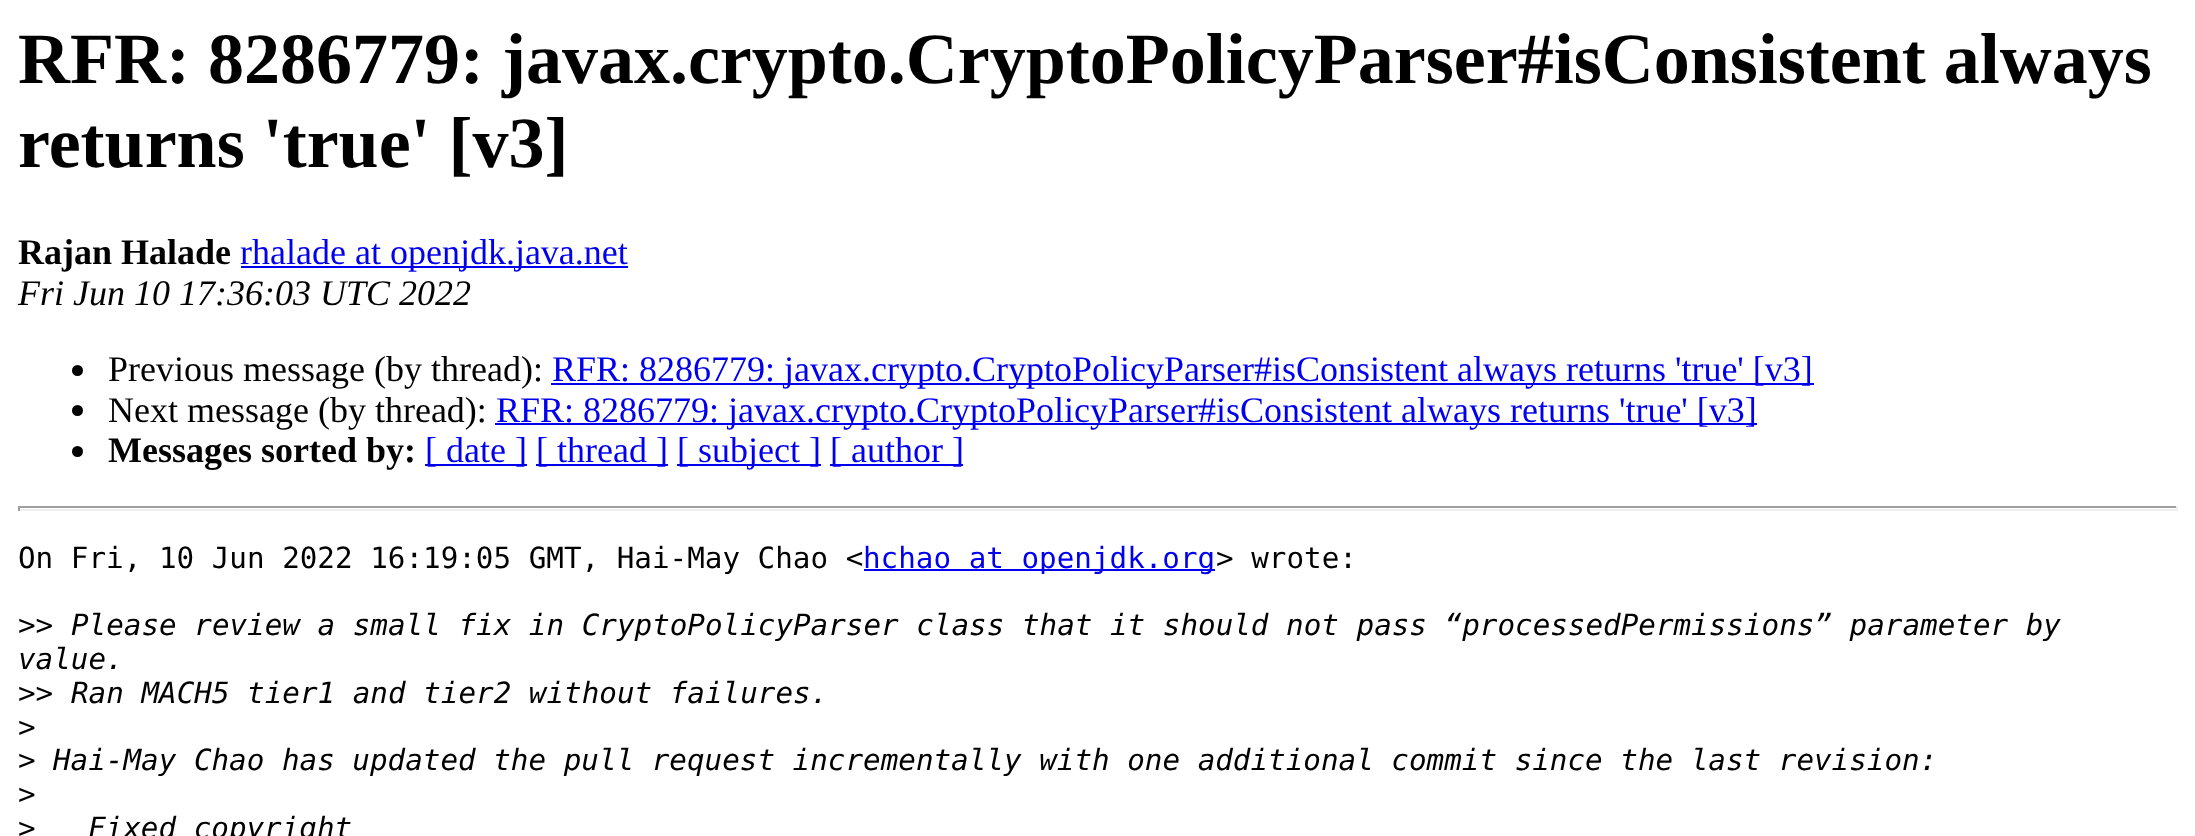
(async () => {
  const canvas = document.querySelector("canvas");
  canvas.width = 2195;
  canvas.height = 836;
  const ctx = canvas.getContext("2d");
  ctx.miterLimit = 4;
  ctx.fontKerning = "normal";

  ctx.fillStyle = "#ffffff";
  ctx.fillRect(0, 0, 2195, 836);
  ctx.fillStyle = "#0000ee";
  ctx.fillRect(241, 266, 387, 2);
  ctx.fillStyle = "#000000";
  ctx.beginPath();
  ctx.arc(77.5, 370.5, 5.5, 0, Math.PI * 2);
  ctx.fill();
  ctx.fillStyle = "#0000ee";
  ctx.fillRect(551, 383, 1263, 2);
  ctx.fillStyle = "#000000";
  ctx.beginPath();
  ctx.arc(77.5, 410.5, 5.5, 0, Math.PI * 2);
  ctx.fill();
  ctx.fillStyle = "#0000ee";
  ctx.fillRect(495, 423, 1262, 2);
  ctx.fillStyle = "#000000";
  ctx.beginPath();
  ctx.arc(77.5, 451.5, 5.5, 0, Math.PI * 2);
  ctx.fill();
  for (const [x, y, w, h, color] of [
    [425, 464, 102, 2, "#0000ee"],
    [536, 464, 132, 2, "#0000ee"],
    [677, 464, 144, 2, "#0000ee"],
    [830, 464, 133, 2, "#0000ee"],
    [18, 506, 2160, 2, "#9f9f9f"],
    [2176, 506, 2, 5, "#eeeeee"],
    [18, 509, 2160, 2, "#eeeeee"],
    [18, 506, 2, 5, "#9f9f9f"],
    [864, 569, 351, 2, "#0000ee"],
  ]) {
    ctx.fillStyle = color;
    ctx.fillRect(x, y, w, h);
  }
  ctx.font = "bold 72px Liberation Serif";
  ctx.fillStyle = "#000000";
  ctx.fillText("RFR: 8286779: javax.crypto.CryptoPolicyParser#isConsistent always", 18, 83);
  ctx.fillText("returns 'true' [v3]", 18, 167);
  ctx.font = "bold 36px Liberation Serif";
  ctx.fillText("Rajan Halade", 18, 264);
  ctx.font = "36px Liberation Serif";
  ctx.fillStyle = "#0000ee";
  ctx.fillText("rhalade at openjdk.java.net", 240, 264);
  ctx.font = "italic 36px Liberation Serif";
  ctx.fillStyle = "#000000";
  ctx.fillText("Fri Jun 10 17:36:03 UTC 2022", 18, 305);
  ctx.font = "36px Liberation Serif";
  ctx.fillText("Previous message (by thread):", 108, 381);
  ctx.fillStyle = "#0000ee";
  ctx.fillText("RFR: 8286779: javax.crypto.CryptoPolicyParser#isConsistent always returns 'true' [v3]", 552, 381);
  ctx.fillStyle = "#000000";
  ctx.fillText("Next message (by thread):", 108, 422);
  ctx.fillStyle = "#0000ee";
  ctx.fillText("RFR: 8286779: javax.crypto.CryptoPolicyParser#isConsistent always returns 'true' [v3]", 496, 422);
  ctx.font = "bold 36px Liberation Serif";
  ctx.fillStyle = "#000000";
  ctx.fillText("Messages sorted by:", 108, 462);
  ctx.font = "36px Liberation Serif";
  ctx.fillStyle = "#0000ee";
  for (const [text, x, y] of [
    ["[ date ]", 425, 462],
    ["[ thread ]", 536, 462],
    ["[ subject ]", 677, 462],
    ["[ author ]", 830, 462],
  ]) {
    ctx.fillText(text, x, y);
  }
  ctx.font = "29.25px DejaVu Sans Mono";
  ctx.fillStyle = "#000000";
  ctx.fillText("On Fri, 10 Jun 2022 16:19:05 GMT, Hai-May Chao <", 18, 568);
  ctx.fillStyle = "#0000ee";
  ctx.fillText("hchao at openjdk.org", 863, 568);
  ctx.fillStyle = "#000000";
  ctx.fillText("> wrote:", 1216, 568);
  ctx.fillText(">>", 18, 635);
  ctx.font = "italic 29.25px DejaVu Sans Mono";
  ctx.fillText("Please review a small fix in CryptoPolicyParser class that it should not pass “processedPermissions” parameter by", 71, 635);
  ctx.fillText("value.", 18, 669);
  ctx.font = "29.25px DejaVu Sans Mono";
  ctx.fillText(">>", 18, 703);
  ctx.font = "italic 29.25px DejaVu Sans Mono";
  ctx.fillText("Ran MACH5 tier1 and tier2 without failures.", 71, 703);
  ctx.font = "29.25px DejaVu Sans Mono";
  ctx.fillText(">", 18, 737);
  ctx.fillText(">", 18, 770);
  ctx.font = "italic 29.25px DejaVu Sans Mono";
  ctx.fillText("Hai-May Chao has updated the pull request incrementally with one additional commit since the last revision:", 53, 770);
  ctx.font = "29.25px DejaVu Sans Mono";
  ctx.fillText(">", 18, 804);
  ctx.fillText(">", 18, 838);
  ctx.font = "italic 29.25px DejaVu Sans Mono";
  ctx.fillText("Fixed copyright", 88, 838);
})();
